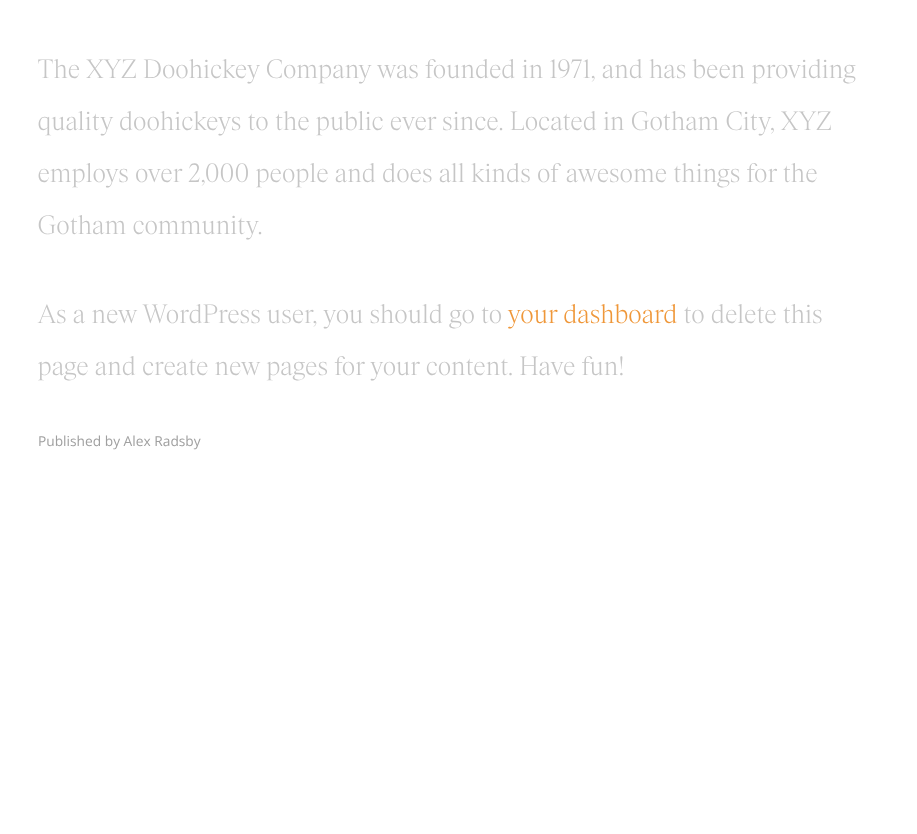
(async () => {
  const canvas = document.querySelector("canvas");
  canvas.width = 917;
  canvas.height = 834;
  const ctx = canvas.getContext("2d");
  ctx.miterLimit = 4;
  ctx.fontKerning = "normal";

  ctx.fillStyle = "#ffffff";
  ctx.fillRect(0, 0, 917, 834);
  ctx.letterSpacing = "1px";
  ctx.font = "300 27.5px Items";
  ctx.fillStyle = "#c6c6c6";
  for (const [text, x, y] of [
    ["The XYZ Doohickey Company was founded in 1971, and has been providing", 38, 78],
    ["quality doohickeys to the public ever since. Located in Gotham City, XYZ", 38, 130],
    ["employs over 2,000 people and does all kinds of awesome things for the", 38, 182],
    ["Gotham community.", 38, 234],
    ["As a new WordPress user, you should go to", 38, 323],
  ]) {
    ctx.fillText(text, x, y);
  }
  ctx.fillStyle = "#ef9739";
  ctx.fillText("your dashboard", 508, 323);
  ctx.fillStyle = "#c6c6c6";
  ctx.fillText("to delete this", 684, 323);
  ctx.fillText("page and create new pages for your content. Have fun!", 38, 375);
  ctx.letterSpacing = "0px";
  ctx.font = "13.75px Open Sans";
  ctx.fillStyle = "#a0a0a0";
  ctx.fillText("Published by Alex Radsby", 38, 446);
})();
